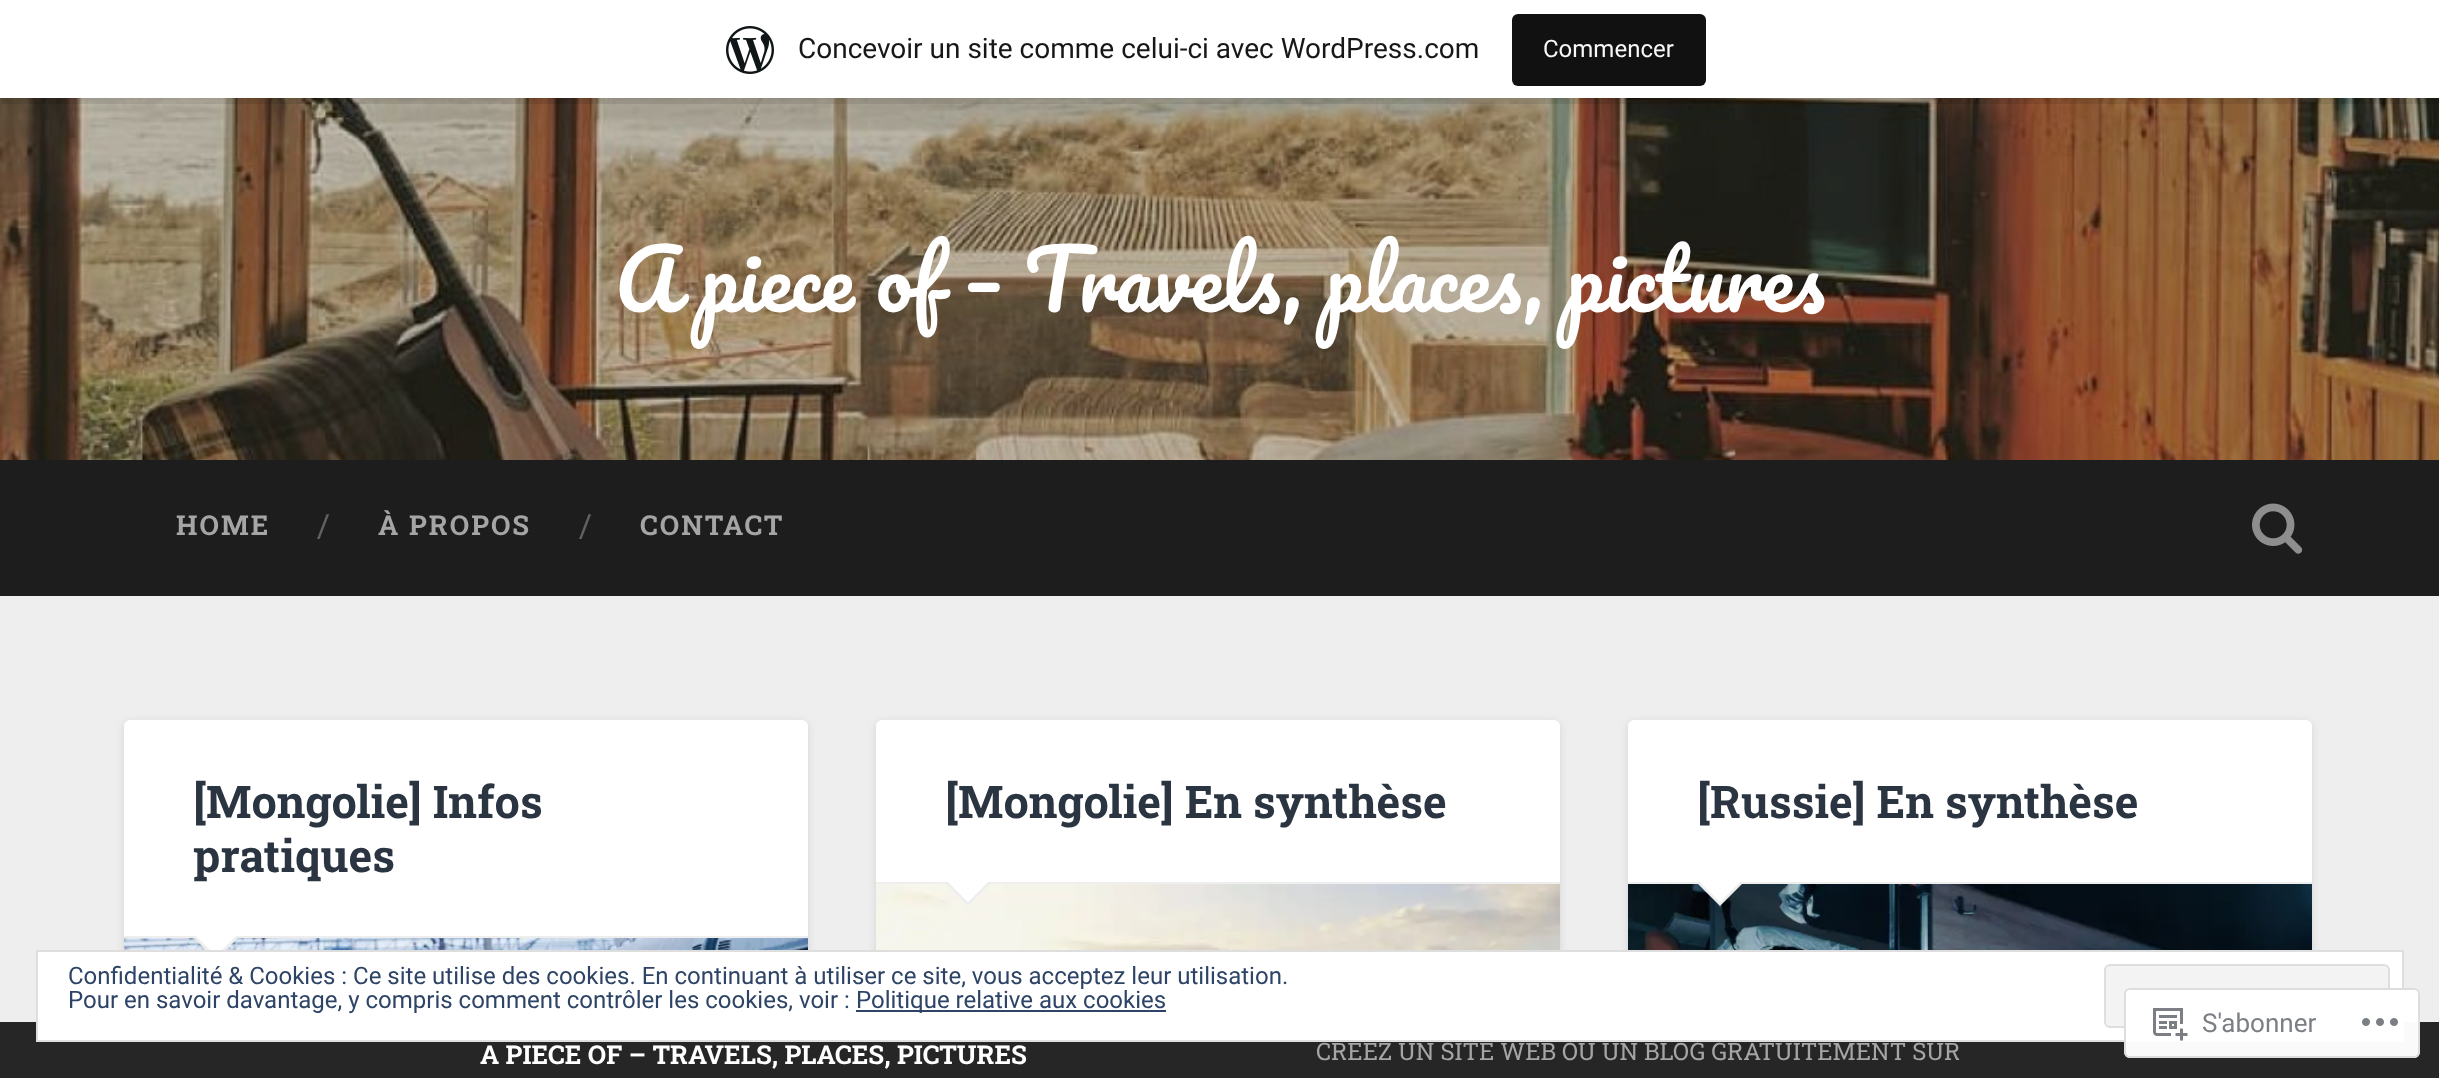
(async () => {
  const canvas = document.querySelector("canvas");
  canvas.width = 2439;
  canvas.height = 1078;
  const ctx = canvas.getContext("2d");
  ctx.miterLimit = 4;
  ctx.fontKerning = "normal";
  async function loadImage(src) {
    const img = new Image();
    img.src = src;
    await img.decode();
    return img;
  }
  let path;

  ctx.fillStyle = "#eeeeee";
  ctx.fillRect(0, 0, 2439, 1078);
  ctx.drawImage(await loadImage("img/2.png"), 0, 98, 2439, 362);
  ctx.fillStyle = "rgba(0, 0, 0, 0.05)";
  ctx.filter = "blur(2px)";
  ctx.beginPath();
  ctx.rect(0, 2, 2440, 98);
  ctx.fill();
  ctx.filter = "none";
  ctx.fillStyle = "rgba(0, 0, 0, 0.08)";
  path = new Path2D("M2 98V104H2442V6H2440V98Z");
  ctx.fill(path);
  ctx.fillStyle = "#ffffff";
  ctx.fillRect(0, 0, 2439, 98);
  ctx.drawImage(await loadImage("img/1.png"), 726, 26, 48, 48);
  ctx.fillStyle = "#111111";
  ctx.beginPath();
  ctx.roundRect(1512, 14, 194, 72, 6);
  ctx.fill();
  ctx.fillStyle = "#1d1d1d";
  ctx.fillRect(0, 460, 2439, 136);
  ctx.drawImage(await loadImage("img/3.png"), 2252, 503, 51, 51);
  ctx.fillStyle = "rgba(0, 0, 0, 0.1)";
  ctx.filter = "blur(4px)";
  ctx.beginPath();
  ctx.roundRect(124, 722, 684, 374, 6);
  ctx.fill();
  ctx.filter = "none";
  ctx.fillStyle = "#ffffff";
  ctx.beginPath();
  ctx.roundRect(124, 720, 684, 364, 6);
  ctx.fill();
  ctx.fillStyle = "#eeeeee";
  ctx.fillRect(124, 936, 684, 2);
  ctx.drawImage(await loadImage("img/4.png"), 124, 938, 684, 12);
  path = new Path2D("M192 936H240L216 960Z");
  ctx.fill(path);
  ctx.fillStyle = "#ffffff";
  path = new Path2D("M194 934H238L216 956Z");
  ctx.fill(path);
  ctx.fillStyle = "rgba(0, 0, 0, 0.1)";
  ctx.filter = "blur(4px)";
  ctx.beginPath();
  ctx.roundRect(876, 722, 684, 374, 6);
  ctx.fill();
  ctx.filter = "none";
  ctx.fillStyle = "#ffffff";
  ctx.beginPath();
  ctx.roundRect(876, 720, 684, 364, 6);
  ctx.fill();
  ctx.fillStyle = "#eeeeee";
  ctx.fillRect(876, 882, 684, 2);
  ctx.drawImage(await loadImage("img/5.png"), 876, 884, 684, 66);
  path = new Path2D("M944 882H992L968 906Z");
  ctx.fill(path);
  ctx.fillStyle = "#ffffff";
  path = new Path2D("M946 880H990L968 902Z");
  ctx.fill(path);
  ctx.fillStyle = "rgba(0, 0, 0, 0.1)";
  ctx.filter = "blur(4px)";
  ctx.beginPath();
  ctx.roundRect(1628, 722, 684, 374, 6);
  ctx.fill();
  ctx.filter = "none";
  ctx.fillStyle = "#ffffff";
  ctx.beginPath();
  ctx.roundRect(1628, 720, 684, 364, 6);
  ctx.fill();
  ctx.fillStyle = "#eeeeee";
  ctx.fillRect(1628, 882, 684, 2);
  ctx.drawImage(await loadImage("img/6.png"), 1628, 884, 684, 66);
  path = new Path2D("M1696 882H1744L1720 906Z");
  ctx.fill(path);
  ctx.fillStyle = "#ffffff";
  path = new Path2D("M1698 880H1742L1720 902Z");
  ctx.fill(path);
  ctx.fillStyle = "#262626";
  ctx.fillRect(0, 1022, 2439, 56);
  ctx.font = "28px Roboto";
  ctx.fillStyle = "#171717";
  ctx.fillText("Concevoir un site comme celui-ci avec WordPress.com", 798, 58);
  ctx.font = "24px Roboto";
  ctx.fillStyle = "#f6f7f7";
  ctx.fillText("Commencer", 1543, 57);
  ctx.font = "81px Pacifico";
  ctx.fillStyle = "#ffffff";
  ctx.fillText("A piece of – Travels, places, pictures", 615, 312);
  ctx.letterSpacing = "2px";
  ctx.font = "bold 27.5px Roboto Slab";
  ctx.fillStyle = "#a5a5a5";
  ctx.fillText("HOME", 176, 535);
  ctx.letterSpacing = "0px";
  ctx.font = "32px Roboto Slab";
  ctx.fillStyle = "#616161";
  ctx.fillText("/", 317, 537);
  ctx.letterSpacing = "2px";
  ctx.font = "bold 27.5px Roboto Slab";
  ctx.fillStyle = "#a5a5a5";
  ctx.fillText("À PROPOS", 378, 535);
  ctx.letterSpacing = "0px";
  ctx.font = "32px Roboto Slab";
  ctx.fillStyle = "#616161";
  ctx.fillText("/", 579, 537);
  ctx.letterSpacing = "2px";
  ctx.font = "bold 27.5px Roboto Slab";
  ctx.fillStyle = "#a5a5a5";
  ctx.fillText("CONTACT", 640, 535);
  ctx.letterSpacing = "0px";
  ctx.font = "bold 45px Roboto Slab";
  ctx.fillStyle = "#2b3542";
  for (const [text, x, y] of [
    ["[Mongolie] Infos", 193, 818],
    ["pratiques", 193, 872],
    ["[Mongolie] En synthèse", 945, 818],
    ["[Russie] En synthèse", 1697, 818],
  ]) {
    ctx.fillText(text, x, y);
  }
  ctx.font = "bold 26px Roboto Slab";
  ctx.fillStyle = "#ffffff";
  ctx.fillText("A PIECE OF – TRAVELS, PLACES, PICTURES", 480, 1064);
  ctx.font = "24px Roboto Slab";
  ctx.fillStyle = "#a5a5a5";
  ctx.fillText("CRÉEZ UN SITE WEB OU UN BLOG GRATUITEMENT SUR", 1316, 1060);
  ctx.fillStyle = "#ffffff";
  ctx.beginPath();
  ctx.rect(37, 951, 2366, 90);
  ctx.fill();
  ctx.strokeStyle = "#dedede";
  ctx.lineWidth = 2;
  ctx.stroke();
  ctx.fillStyle = "#f3f3f3";
  ctx.beginPath();
  ctx.roundRect(2105, 965, 284, 62, 5);
  ctx.fill();
  ctx.stroke();
  ctx.fillStyle = "rgba(255, 255, 255, 0.98)";
  ctx.beginPath();
  ctx.roundRect(2124, 988, 296, 70, 6);
  ctx.fill();
  ctx.beginPath();
  ctx.roundRect(2125, 989, 294, 68, 5);
  ctx.strokeStyle = "rgba(220, 220, 222, 0.98)";
  ctx.stroke();
  ctx.drawImage(await loadImage("img/8.png"), 2362, 1018, 36, 8);
  ctx.drawImage(await loadImage("img/7.png"), 2153, 1008, 35, 33);
  ctx.font = "26px Roboto";
  ctx.fillStyle = "#7b7f84";
  ctx.fillText("S'abonner", 2202, 1032);
  ctx.fillStyle = "#2e4467";
  ctx.fillRect(856, 1010, 310, 2);
  ctx.font = "24px Roboto";
  for (const [text, x, y] of [
    ["Politique relative aux cookies", 856, 1008],
    ["Pour en savoir davantage, y compris comment contrôler les cookies, voir :", 68, 1008],
    ["Confidentialité & Cookies : Ce site utilise des cookies. En continuant à utiliser ce site, vous acceptez leur utilisation.", 68, 984],
  ]) {
    ctx.fillText(text, x, y);
  }
})();
